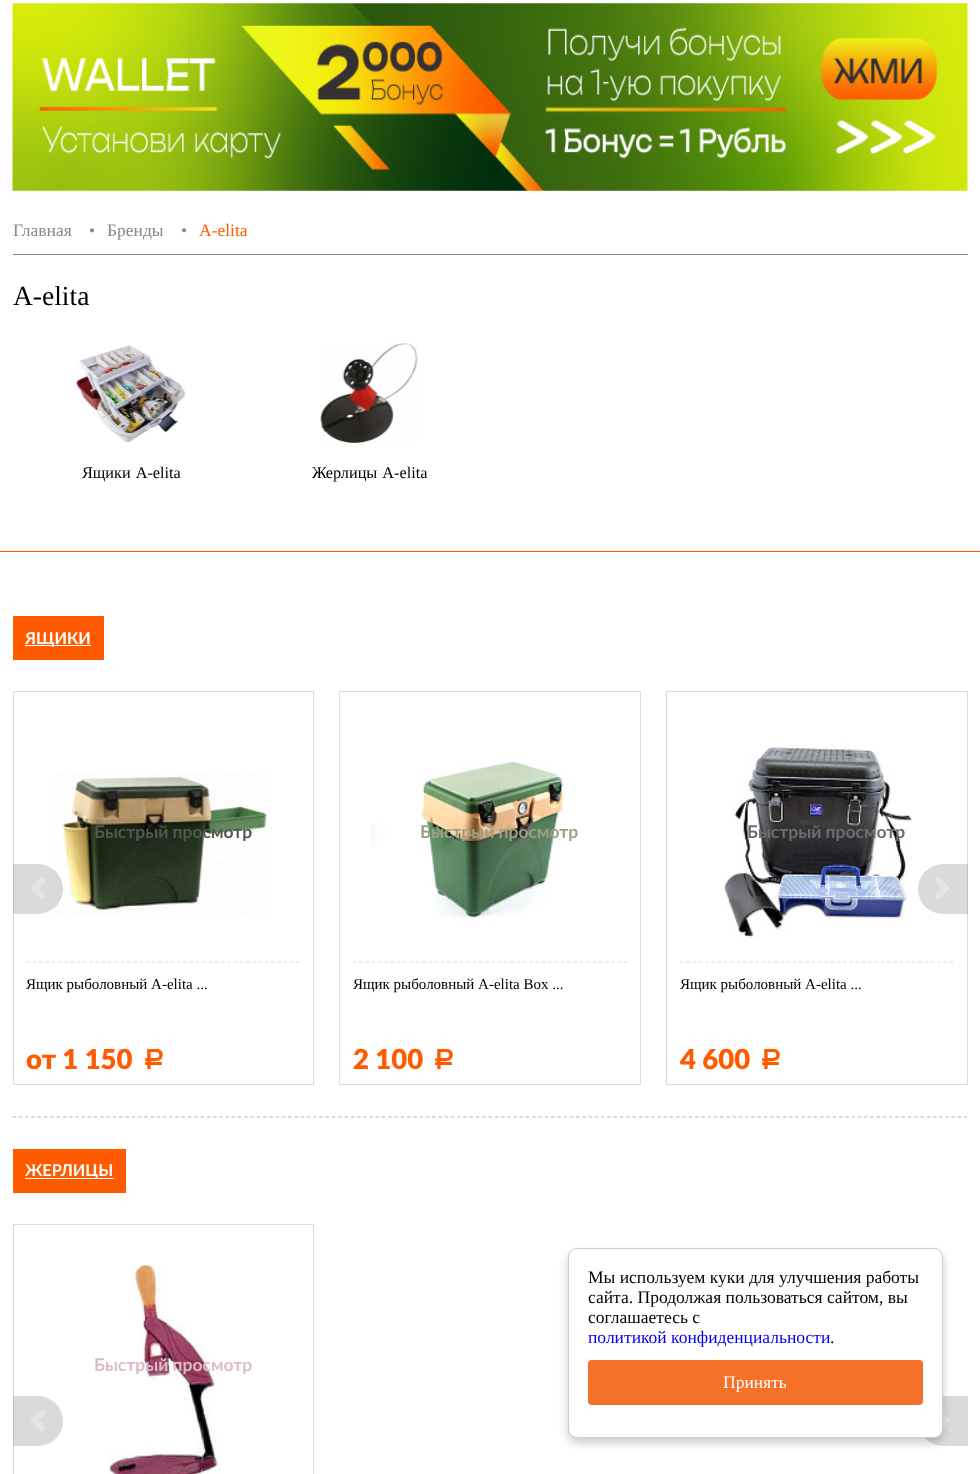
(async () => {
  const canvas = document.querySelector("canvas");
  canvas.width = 980;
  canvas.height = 1474;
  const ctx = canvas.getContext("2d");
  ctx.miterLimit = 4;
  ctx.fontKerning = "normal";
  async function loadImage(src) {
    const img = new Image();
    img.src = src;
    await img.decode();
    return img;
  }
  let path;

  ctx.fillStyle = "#ffffff";
  ctx.fillRect(0, 0, 980, 1474);
  ctx.drawImage(await loadImage("img/1.png"), 12, 3, 956, 188);
  ctx.fillStyle = "#8b8884";
  ctx.fillRect(13, 254, 955, 1);
  ctx.drawImage(await loadImage("img/2.png"), 75, 345, 111, 98);
  ctx.drawImage(await loadImage("img/3.png"), 320, 343, 98, 101);
  ctx.fillStyle = "#ff5a00";
  ctx.fillRect(0, 551, 980, 1);
  path = new Path2D("M12.5 1117H967.5");
  ctx.strokeStyle = "#bcbcbc";
  ctx.lineWidth = 1.2;
  ctx.setLineDash([3.75, 2.51]);
  ctx.stroke(path);
  ctx.fillRect(13, 616, 91, 44);
  ctx.fillStyle = "#ffffff";
  ctx.fillRect(25, 645, 66, 1);
  ctx.strokeStyle = "#dbdbdb";
  ctx.lineWidth = 1;
  ctx.setLineDash([]);
  ctx.strokeRect(13.5, 691.5, 300, 393);
  path = new Path2D("M26.5 962H300");
  ctx.lineWidth = 1.2;
  ctx.setLineDash([3.75, 2.52]);
  ctx.stroke(path);
  ctx.drawImage(await loadImage("img/4.png"), 54, 772, 218, 145);
  ctx.lineWidth = 1;
  ctx.setLineDash([]);
  ctx.strokeRect(339.5, 691.5, 301, 393);
  path = new Path2D("M352.5 962H627.5");
  ctx.lineWidth = 1.2;
  ctx.setLineDash([3.75, 2.56]);
  ctx.stroke(path);
  ctx.drawImage(await loadImage("img/5.png"), 371, 761, 199, 161);
  ctx.lineWidth = 1;
  ctx.setLineDash([]);
  ctx.strokeRect(666.5, 691.5, 301, 393);
  path = new Path2D("M680 962H954");
  ctx.lineWidth = 1.2;
  ctx.setLineDash([3.75, 2.52]);
  ctx.stroke(path);
  ctx.drawImage(await loadImage("img/6.png"), 724, 743, 188, 199);
  ctx.fillStyle = "rgba(134, 134, 134, 0.3)";
  ctx.beginPath();
  ctx.roundRect(13, 864, 50, 50, [0, 25, 25, 0]);
  ctx.fill();
  ctx.drawImage(await loadImage("img/7.png"), 30, 877, 15, 22);
  ctx.beginPath();
  ctx.roundRect(918, 864, 50, 50, [25, 0, 0, 25]);
  ctx.fill();
  ctx.drawImage(await loadImage("img/8.png"), 935, 877, 15, 22);
  ctx.fillStyle = "#ff5a00";
  ctx.fillRect(13, 1149, 113, 44);
  ctx.fillStyle = "#ffffff";
  ctx.fillRect(25, 1178, 89, 1);
  ctx.lineWidth = 1;
  ctx.setLineDash([]);
  ctx.strokeRect(13.5, 1224.5, 300, 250);
  ctx.drawImage(await loadImage("img/9.png"), 107, 1265, 114, 209);
  ctx.fillStyle = "rgba(134, 134, 134, 0.3)";
  ctx.beginPath();
  ctx.roundRect(13, 1396, 50, 50, [0, 25, 25, 0]);
  ctx.fill();
  ctx.drawImage(await loadImage("img/10.png"), 30, 1410, 15, 22);
  ctx.fillStyle = "#dbdbdb";
  ctx.beginPath();
  ctx.roundRect(918, 1396, 50, 50, [25, 0, 0, 25]);
  ctx.fill();
  ctx.drawImage(await loadImage("img/11.png"), 943, 1413, 7, 15);
  ctx.fillStyle = "rgba(0, 0, 0, 0.2)";
  ctx.filter = "blur(5px)";
  ctx.beginPath();
  ctx.roundRect(568, 1253, 375, 190, 9);
  ctx.fill();
  ctx.filter = "none";
  ctx.fillStyle = "#ffffff";
  ctx.beginPath();
  ctx.roundRect(568.5, 1248.5, 374, 189, 8.5);
  ctx.fill();
  ctx.strokeStyle = "#cccccc";
  ctx.stroke();
  ctx.fillStyle = "#f57028";
  ctx.beginPath();
  ctx.roundRect(588, 1360, 335, 45, 4);
  ctx.fill();
  ctx.font = "17.5px Liberation Serif";
  ctx.fillStyle = "#898989";
  for (const [text, x, y] of [
    ["Главная", 13, 236],
    ["•", 89, 236],
    ["Бренды", 107, 236],
    ["•", 181, 236],
  ]) {
    ctx.fillText(text, x, y);
  }
  ctx.fillStyle = "#ff5a00";
  ctx.fillText("A-elita", 199, 236);
  ctx.font = "27.5px Liberation Serif";
  ctx.fillStyle = "#000000";
  ctx.fillText("A-elita", 13, 305);
  ctx.wordSpacing = "1px";
  ctx.font = "16.25px Liberation Serif";
  ctx.fillText("Ящики A-elita", 82, 478);
  ctx.fillText("Жерлицы A-elita", 312, 478);
  ctx.wordSpacing = "0px";
  ctx.font = "bold 16.25px Lato";
  ctx.fillStyle = "#ffffff";
  ctx.fillText("ЯЩИКИ", 25, 644);
  ctx.font = "bold 17.5px Lato";
  ctx.fillStyle = "#515b4d";
  ctx.fillText("Быстрый просмотр", 94, 838);
  ctx.font = "15px Liberation Serif";
  ctx.fillStyle = "#000000";
  ctx.fillText("Ящик рыболовный A-elita ...", 26, 989);
  ctx.font = "900 27.5px Lato";
  ctx.fillStyle = "#ff5a00";
  ctx.fillText("от 1 150", 26, 1069);
  ctx.font = "bold 27.5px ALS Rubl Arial";
  ctx.fillText("Р", 143, 1069);
  ctx.font = "bold 17.5px Lato";
  ctx.fillStyle = "#9ea086";
  ctx.fillText("Быстрый просмотр", 420, 838);
  ctx.font = "15px Liberation Serif";
  ctx.fillStyle = "#000000";
  ctx.fillText("Ящик рыболовный A-elita Box ...", 353, 989);
  ctx.font = "900 27.5px Lato";
  ctx.fillStyle = "#ff5a00";
  ctx.fillText("2 100", 353, 1069);
  ctx.font = "bold 27.5px ALS Rubl Arial";
  ctx.fillText("Р", 433, 1069);
  ctx.font = "bold 17.5px Lato";
  ctx.fillStyle = "#6e6d6e";
  ctx.fillText("Быстрый просмотр", 747, 838);
  ctx.font = "15px Liberation Serif";
  ctx.fillStyle = "#000000";
  ctx.fillText("Ящик рыболовный A-elita ...", 680, 989);
  ctx.font = "900 27.5px Lato";
  ctx.fillStyle = "#ff5a00";
  ctx.fillText("4 600", 680, 1069);
  ctx.font = "bold 27.5px ALS Rubl Arial";
  ctx.fillText("Р", 760, 1069);
  ctx.font = "bold 16.25px Lato";
  ctx.fillStyle = "#ffffff";
  ctx.fillText("ЖЕРЛИЦЫ", 25, 1176);
  ctx.font = "bold 17.5px Lato";
  ctx.fillStyle = "#dabdc8";
  ctx.fillText("Быстрый просмотр", 94, 1371);
  ctx.font = "17.5px Liberation Serif";
  ctx.fillStyle = "#000000";
  for (const [text, x, y] of [
    ["Мы используем куки для улучшения работы", 588, 1283],
    ["сайта. Продолжая пользоваться сайтом, вы", 588, 1303],
    ["соглашаетесь с", 588, 1323],
  ]) {
    ctx.fillText(text, x, y);
  }
  ctx.fillStyle = "#0000ee";
  ctx.fillText("политикой конфиденциальности", 588, 1343);
  ctx.fillStyle = "#000000";
  ctx.fillText(".", 830, 1343);
  ctx.fillStyle = "#ffffff";
  ctx.fillText("Принять", 723, 1388);
})();
